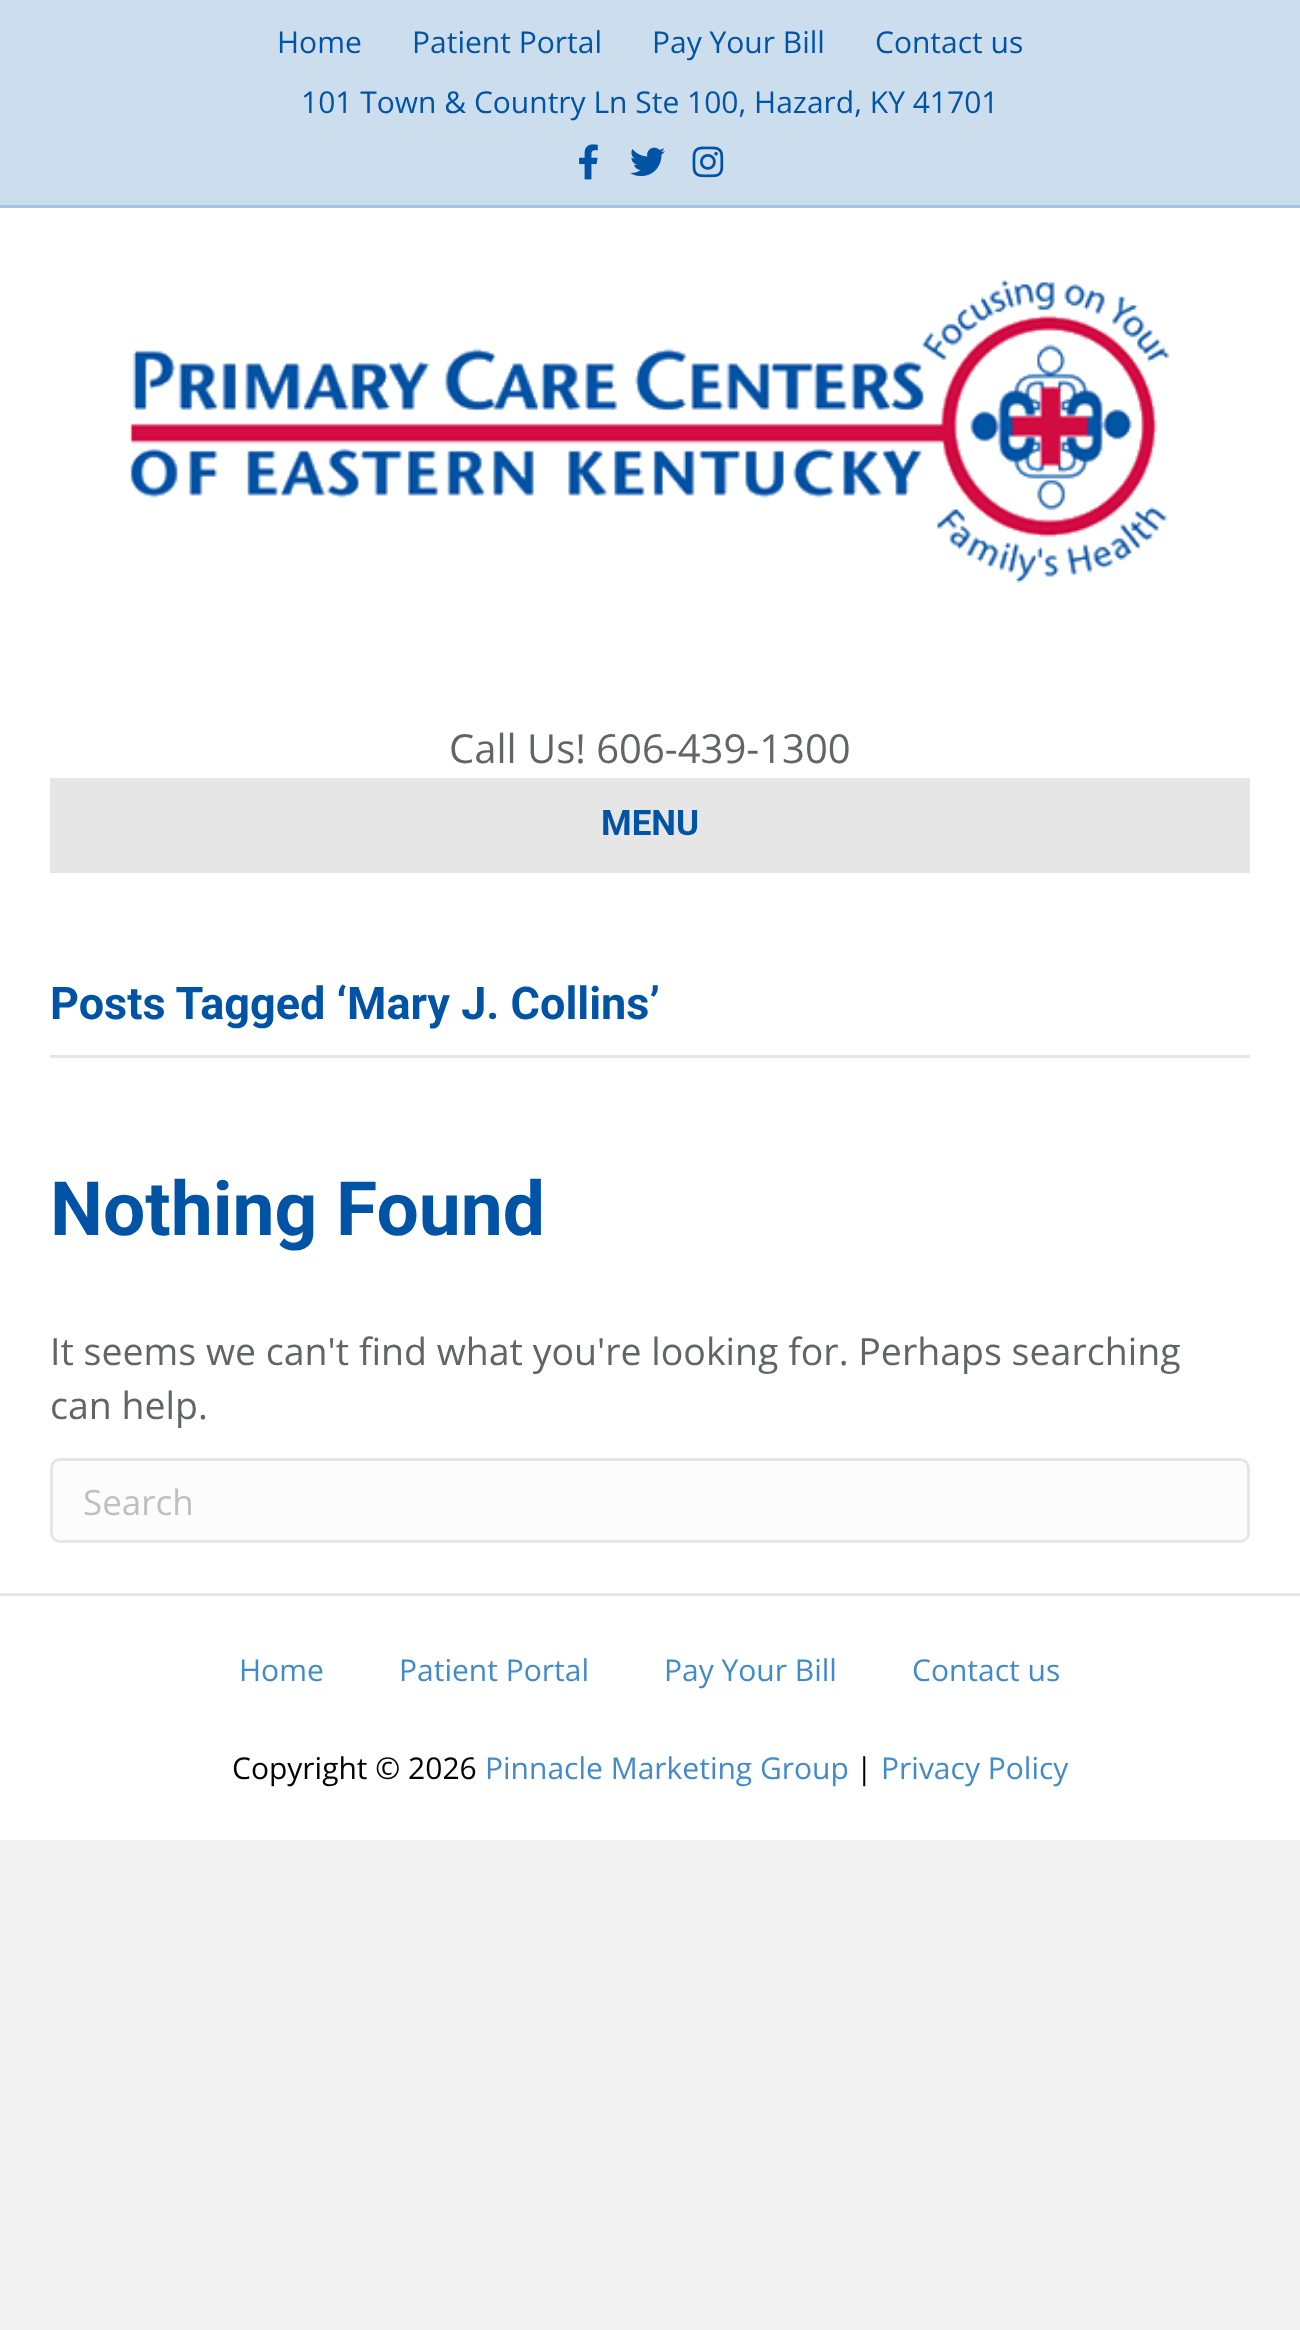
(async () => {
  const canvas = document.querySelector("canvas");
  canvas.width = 1300;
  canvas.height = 2330;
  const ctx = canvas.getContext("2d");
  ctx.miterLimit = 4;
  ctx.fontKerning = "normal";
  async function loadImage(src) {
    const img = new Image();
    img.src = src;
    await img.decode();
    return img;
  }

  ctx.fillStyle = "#f2f2f2";
  ctx.fillRect(0, 0, 1300, 2330);
  ctx.fillStyle = "#ccdded";
  ctx.fillRect(0, 0, 1300, 205);
  ctx.fillStyle = "#a6c4e0";
  ctx.fillRect(0, 205, 1300, 3);
  ctx.drawImage(await loadImage("img/1.png"), 579, 144, 19, 36);
  ctx.drawImage(await loadImage("img/2.png"), 630, 147, 35, 30);
  ctx.drawImage(await loadImage("img/3.png"), 692, 146, 32, 32);
  ctx.fillStyle = "#ffffff";
  ctx.fillRect(0, 208, 1300, 1385);
  ctx.drawImage(await loadImage("img/4.png"), 130, 280, 1040, 303);
  ctx.fillStyle = "#e6e6e6";
  ctx.fillRect(50, 778, 1200, 95);
  ctx.fillRect(50, 1055, 1200, 3);
  ctx.fillStyle = "#fcfcfc";
  ctx.beginPath();
  ctx.roundRect(51.5, 1459.5, 1197, 82, 8.5);
  ctx.fill();
  ctx.strokeStyle = "#e6e6e6";
  ctx.lineWidth = 3;
  ctx.stroke();
  ctx.fillStyle = "#ffffff";
  ctx.fillRect(0, 1596, 1300, 244);
  ctx.fillStyle = "#e6e6e6";
  ctx.fillRect(0, 1593, 1300, 3);
  ctx.font = "30px Open Sans";
  ctx.fillStyle = "#0154a5";
  for (const [text, x, y] of [
    ["Home", 277, 53],
    ["Patient Portal", 412, 53],
    ["Pay Your Bill", 652, 53],
    ["Contact us", 875, 53],
    ["101 Town & Country Ln Ste 100, Hazard, KY 41701", 301, 113],
  ]) {
    ctx.fillText(text, x, y);
  }
  ctx.font = "40px Open Sans";
  ctx.fillStyle = "#636466";
  ctx.fillText("Call Us! 606-439-1300", 449, 763);
  ctx.font = "bold 35px Roboto";
  ctx.fillStyle = "#0154a5";
  ctx.fillText("MENU", 601, 835);
  ctx.font = "bold 45px Roboto";
  ctx.fillText("Posts Tagged ‘Mary J. Collins’", 50, 1019);
  ctx.font = "bold 75px Roboto";
  ctx.fillText("Nothing Found", 50, 1235);
  ctx.font = "37.5px Open Sans";
  ctx.fillStyle = "#636466";
  ctx.fillText("It seems we can't find what you're looking for. Perhaps searching", 50, 1365);
  ctx.fillText("can help.", 50, 1419);
  ctx.font = "35px Open Sans";
  ctx.fillStyle = "#bfbfc0";
  ctx.fillText("Search", 83, 1515);
  ctx.font = "30px Open Sans";
  ctx.fillStyle = "#428bca";
  for (const [text, x, y] of [
    ["Home", 239, 1681],
    ["Patient Portal", 399, 1681],
    ["Pay Your Bill", 664, 1681],
    ["Contact us", 912, 1681],
  ]) {
    ctx.fillText(text, x, y);
  }
  ctx.fillStyle = "#000000";
  ctx.fillText("Copyright © 2026", 232, 1779);
  ctx.fillStyle = "#428bca";
  ctx.fillText("Pinnacle Marketing Group", 485, 1779);
  ctx.fillStyle = "#000000";
  ctx.fillText("|", 856, 1779);
  ctx.fillStyle = "#428bca";
  ctx.fillText("Privacy Policy", 881, 1779);
})();
